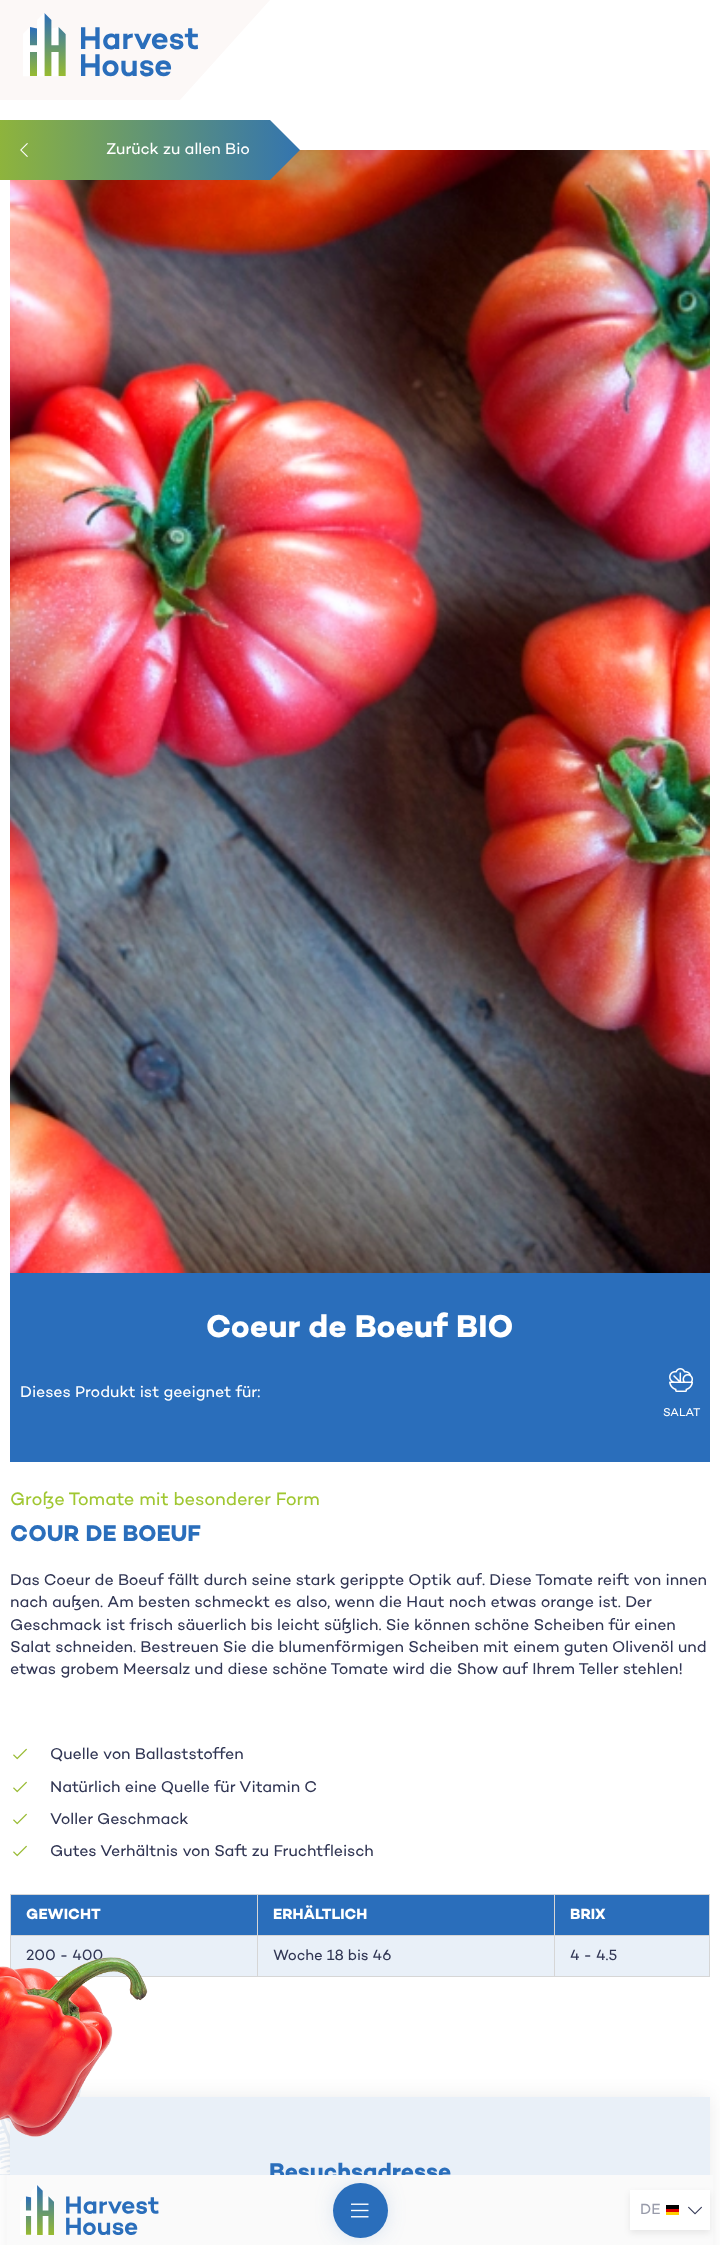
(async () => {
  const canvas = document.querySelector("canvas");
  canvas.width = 720;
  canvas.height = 2245;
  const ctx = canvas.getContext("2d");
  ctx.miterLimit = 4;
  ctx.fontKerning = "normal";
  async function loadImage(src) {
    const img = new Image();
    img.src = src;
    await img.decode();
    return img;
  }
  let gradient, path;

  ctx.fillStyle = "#ffffff";
  ctx.fillRect(0, 0, 720, 2245);
  ctx.drawImage(await loadImage("img/2.png"), 10, 150, 700, 1123);
  gradient = ctx.createLinearGradient(-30, 150, 330, 150);
  gradient.addColorStop(0, "#97ba31");
  gradient.addColorStop(1, "#2a6ebb");
  ctx.fillStyle = gradient;
  path = new Path2D("M-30 120V180H270L300 150L270 120Z");
  ctx.fill(path);
  ctx.drawImage(await loadImage("img/1.png"), 20, 143, 8, 14);
  ctx.fillStyle = "#2a6ebb";
  ctx.fillRect(10, 1273, 700, 189);
  ctx.drawImage(await loadImage("img/3.png"), 669, 1368, 24, 24);
  ctx.drawImage(await loadImage("img/4.png"), 13, 1748, 14, 12);
  ctx.drawImage(await loadImage("img/4.png"), 13, 1781, 14, 12);
  ctx.drawImage(await loadImage("img/4.png"), 13, 1813, 14, 12);
  ctx.drawImage(await loadImage("img/4.png"), 13, 1845, 14, 12);
  for (const [x, y, w, h, color] of [
    [11, 1895, 246, 40, "#2a6ebb"],
    [554, 1894, 156, 1, "#d6d6d6"],
    [554, 1935, 156, 1, "#d6d6d6"],
    [11, 1936, 698, 40, "#e9f0f8"],
    [709, 1935, 1, 42, "#d6d6d6"],
    [554, 1976, 156, 1, "#d6d6d6"],
    [554, 1935, 1, 42, "#d6d6d6"],
    [257, 1935, 298, 1, "#d6d6d6"],
    [554, 1894, 1, 42, "#d6d6d6"],
    [257, 1894, 298, 1, "#d6d6d6"],
    [257, 1976, 298, 1, "#d6d6d6"],
    [257, 1935, 1, 42, "#d6d6d6"],
    [10, 1935, 248, 1, "#d6d6d6"],
    [257, 1894, 1, 42, "#d6d6d6"],
    [10, 1894, 248, 1, "#d6d6d6"],
    [10, 1935, 1, 42, "#d6d6d6"],
    [10, 1894, 1, 42, "#d6d6d6"],
    [258, 1895, 296, 40, "#2a6ebb"],
    [555, 1895, 154, 40, "#2a6ebb"],
    [709, 1894, 1, 42, "#d6d6d6"],
    [53, 1976, 205, 1, "#d6d6d6"],
  ]) {
    ctx.fillStyle = color;
    ctx.fillRect(x, y, w, h);
  }
  ctx.drawImage(await loadImage("img/5.png"), 0, 2083, 83, 92);
  ctx.fillStyle = "rgba(0, 0, 0, 0.08)";
  ctx.filter = "blur(10px)";
  ctx.beginPath();
  ctx.rect(10, 2097, 700, 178);
  ctx.fill();
  ctx.filter = "none";
  ctx.fillStyle = "#e9f0f8";
  ctx.fillRect(10, 2097, 700, 78);
  ctx.fillStyle = "#fcf8f7";
  path = new Path2D("M-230 0L-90 100H180L270 0Z");
  ctx.fill(path);
  ctx.drawImage(await loadImage("img/7.png"), 23, 13, 176, 64);
  ctx.font = "16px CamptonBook";
  ctx.fillStyle = "#ffffff";
  ctx.fillText("Zurück zu allen Bio", 106, 154);
  ctx.font = "bold 32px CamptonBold";
  ctx.fillText("Coeur de Boeuf BIO", 206, 1337);
  ctx.font = "16px CamptonBook";
  ctx.fillText("Dieses Produkt ist geeignet für:", 20, 1397);
  ctx.font = "11.5px CamptonBook";
  ctx.fillText("SALAT", 663, 1416);
  ctx.font = "18.25px CamptonBook";
  ctx.fillStyle = "#a0c731";
  ctx.fillText("Große Tomate mit besonderer Form", 10, 1505);
  ctx.font = "bold 23px CamptonBold";
  ctx.fillStyle = "#2a6ebb";
  ctx.fillText("COUR DE BOEUF", 10, 1541);
  ctx.font = "16px CamptonBook";
  ctx.fillStyle = "#313654";
  for (const [text, x, y] of [
    ["Das Coeur de Boeuf fällt durch seine stark gerippte Optik auf. Diese Tomate reift von innen", 10, 1585],
    ["nach außen. Am besten schmeckt es also, wenn die Haut noch etwas orange ist. Der", 10, 1607],
    ["Geschmack ist frisch säuerlich bis leicht süßlich. Sie können schöne Scheiben für einen", 10, 1630],
    ["Salat schneiden. Bestreuen Sie die blumenförmigen Scheiben mit einem guten Olivenöl und", 10, 1652],
    ["etwas grobem Meersalz und diese schöne Tomate wird die Show auf Ihrem Teller stehlen!", 10, 1674],
    ["Quelle von Ballaststoffen", 50, 1759],
    ["Natürlich eine Quelle für Vitamin C", 50, 1792],
    ["Voller Geschmack", 50, 1824],
    ["Gutes Verhältnis von Saft zu Fruchtfleisch", 50, 1856],
  ]) {
    ctx.fillText(text, x, y);
  }
  ctx.font = "bold 15px CamptonBold";
  ctx.fillStyle = "#ffffff";
  for (const [text, x, y] of [
    ["GEWICHT", 26, 1919],
    ["ERHÄLTLICH", 273, 1919],
    ["BRIX", 570, 1919],
  ]) {
    ctx.fillText(text, x, y);
  }
  ctx.font = "15px CamptonBook";
  ctx.fillStyle = "#313654";
  for (const [text, x, y] of [
    ["200 - 400", 26, 1960],
    ["Woche 18 bis 46", 273, 1960],
    ["4 - 4.5", 570, 1960],
  ]) {
    ctx.fillText(text, x, y);
  }
  ctx.drawImage(await loadImage("img/6.png"), 0, 1957, 148, 180);
  ctx.font = "bold 23px CamptonBold";
  ctx.fillStyle = "#2a6ebb";
  ctx.fillText("Besuchsadresse", 269, 2179);
  ctx.fillStyle = "#fafafa";
  ctx.fillRect(7, 2175, 706, 70);
  ctx.drawImage(await loadImage("img/8.png"), 20, 2185, 139, 50);
  ctx.fillStyle = "#2a6ebb";
  ctx.filter = "blur(15px)";
  ctx.beginPath();
  ctx.roundRect(348, 2198, 25, 25, 12.5);
  ctx.fill();
  ctx.filter = "none";
  ctx.beginPath();
  ctx.arc(360.5, 2210.5, 27.5, 0, Math.PI * 2);
  ctx.fill();
  ctx.drawImage(await loadImage("img/9.png"), 351, 2203, 18, 15);
  ctx.fillStyle = "rgba(0, 0, 0, 0.08)";
  ctx.filter = "blur(3px)";
  ctx.beginPath();
  ctx.rect(630, 2193, 80, 40);
  ctx.fill();
  ctx.filter = "none";
  ctx.fillStyle = "#ffffff";
  ctx.fillRect(630, 2190, 80, 40);
  ctx.font = "15px CamptonBook";
  ctx.fillStyle = "#989baa";
  ctx.fillText("DE", 640, 2214);
  for (const [x, y, w, h, color] of [
    [666, 2212, 13, 3, "#ffce00"],
    [666, 2205, 13, 4, "#000000"],
    [666, 2209, 13, 3, "#dd0000"],
  ]) {
    ctx.fillStyle = color;
    ctx.fillRect(x, y, w, h);
  }
  ctx.drawImage(await loadImage("img/10.png"), 688, 2206, 14, 9);
})();
